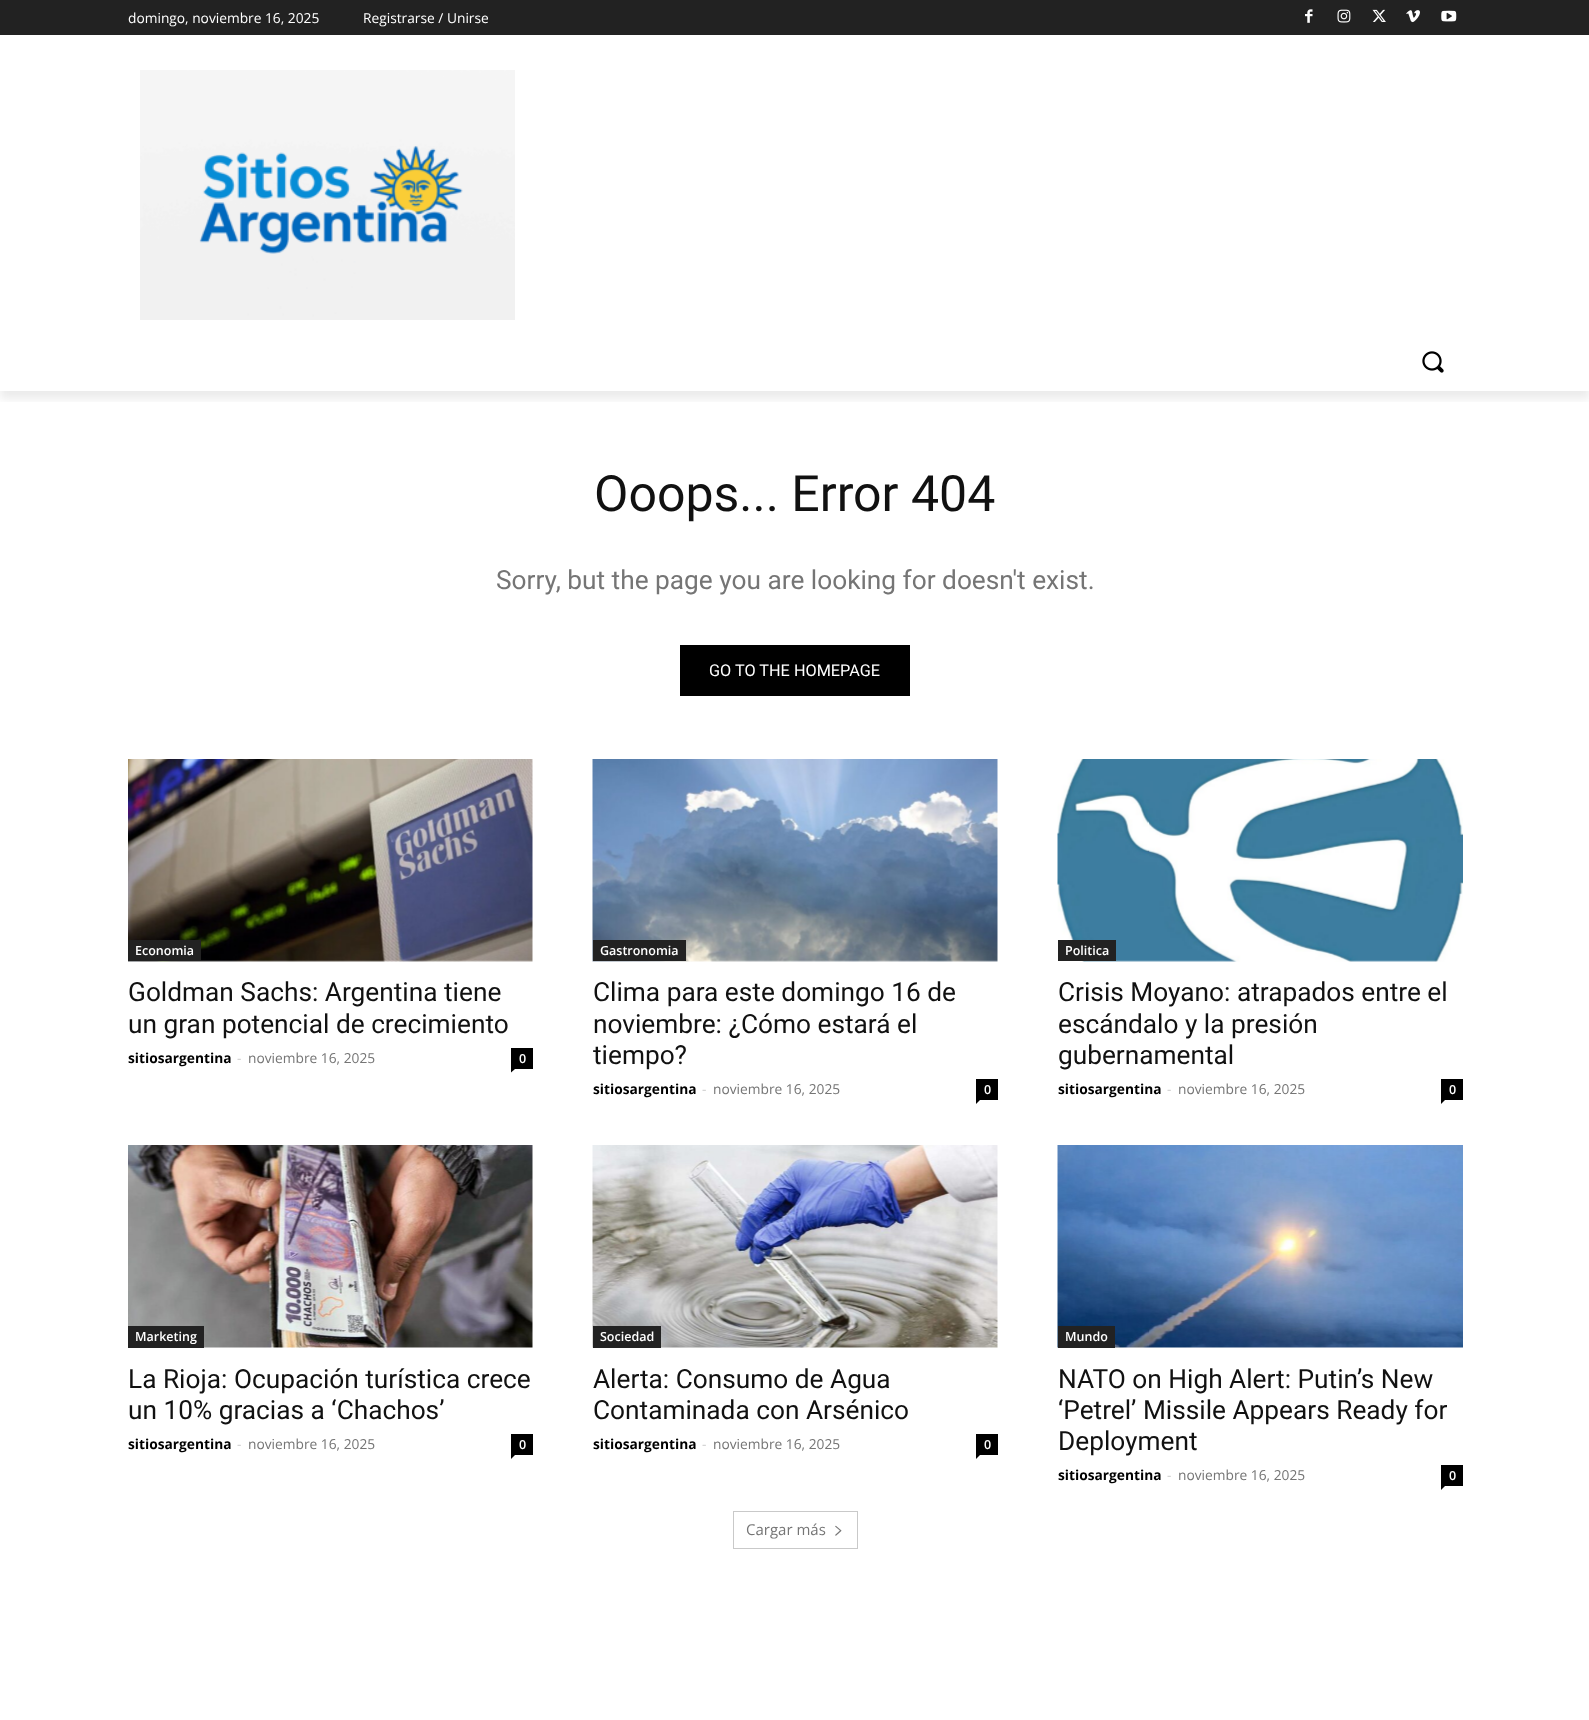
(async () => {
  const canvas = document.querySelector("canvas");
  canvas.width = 1589;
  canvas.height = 1720;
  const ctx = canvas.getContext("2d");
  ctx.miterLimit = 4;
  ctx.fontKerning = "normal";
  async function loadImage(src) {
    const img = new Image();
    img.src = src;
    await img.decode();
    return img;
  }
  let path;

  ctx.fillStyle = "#ffffff";
  ctx.fillRect(0, 0, 1589, 1720);
  ctx.fillStyle = "#222222";
  ctx.fillRect(0, 0, 1589, 35);
  ctx.drawImage(await loadImage("img/1.png"), 1305, 9, 8, 14);
  ctx.drawImage(await loadImage("img/2.png"), 1337, 9, 14, 14);
  ctx.drawImage(await loadImage("img/3.png"), 1372, 9, 14, 13);
  ctx.drawImage(await loadImage("img/4.png"), 1406, 10, 14, 13);
  ctx.drawImage(await loadImage("img/5.png"), 1441, 10, 16, 12);
  ctx.drawImage(await loadImage("img/6.png"), 140, 70, 375, 250);
  ctx.save();
  ctx.beginPath();
  ctx.rect(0, 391, 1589, 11);
  ctx.clip();
  ctx.fillStyle = "rgba(0, 0, 0, 0.08)";
  ctx.filter = "blur(5px)";
  ctx.beginPath();
  ctx.rect(0, 8, 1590, 391);
  ctx.fill();
  ctx.filter = "none";
  ctx.restore();
  ctx.drawImage(await loadImage("img/7.png"), 1422, 351, 22, 22);
  ctx.fillStyle = "#000000";
  ctx.fillRect(680, 645, 230, 51);
  ctx.drawImage(await loadImage("img/8.png"), 128, 759, 405, 203);
  ctx.fillStyle = "#222222";
  ctx.fillRect(128, 940, 73, 21);
  ctx.fillStyle = "#000000";
  ctx.fillRect(511, 1048, 22, 21);
  path = new Path2D("M511 1069H515L511 1072.5Z");
  ctx.fill(path);
  ctx.drawImage(await loadImage("img/9.png"), 592, 759, 406, 203);
  ctx.fillStyle = "#222222";
  ctx.fillRect(593, 940, 93, 21);
  ctx.fillStyle = "#000000";
  ctx.fillRect(976, 1079, 22, 21);
  path = new Path2D("M976 1100H980L976 1104Z");
  ctx.fill(path);
  ctx.drawImage(await loadImage("img/10.png"), 1057, 759, 406, 203);
  ctx.fillStyle = "#222222";
  ctx.fillRect(1058, 940, 58, 21);
  ctx.fillStyle = "#000000";
  ctx.fillRect(1441, 1079, 22, 21);
  path = new Path2D("M1441 1100H1445L1441 1104Z");
  ctx.fill(path);
  ctx.drawImage(await loadImage("img/11.png"), 128, 1145, 405, 203);
  ctx.fillStyle = "#222222";
  ctx.fillRect(128, 1326, 76, 22);
  ctx.fillStyle = "#000000";
  ctx.fillRect(511, 1434, 22, 21);
  path = new Path2D("M511 1455H515L511 1459Z");
  ctx.fill(path);
  ctx.drawImage(await loadImage("img/12.png"), 592, 1145, 406, 203);
  ctx.fillStyle = "#222222";
  ctx.fillRect(593, 1326, 68, 22);
  ctx.fillStyle = "#000000";
  ctx.fillRect(976, 1434, 22, 21);
  path = new Path2D("M976 1455H980L976 1459Z");
  ctx.fill(path);
  ctx.drawImage(await loadImage("img/13.png"), 1057, 1145, 406, 203);
  ctx.fillStyle = "#222222";
  ctx.fillRect(1058, 1326, 57, 22);
  ctx.fillStyle = "#000000";
  ctx.fillRect(1441, 1465, 22, 21);
  path = new Path2D("M1441 1486H1445L1441 1490Z");
  ctx.fill(path);
  ctx.strokeStyle = "#c9c9c9";
  ctx.strokeRect(733.5, 1511.5, 124, 37);
  ctx.drawImage(await loadImage("img/14.png"), 835, 1525, 7, 11);
  ctx.font = "13.75px Open Sans";
  ctx.fillStyle = "#ffffff";
  ctx.fillText("domingo, noviembre 16, 2025", 128, 23);
  ctx.fillText("Registrarse / Unirse", 363, 23);
  ctx.font = "50px Roboto";
  ctx.fillStyle = "#111111";
  ctx.fillText("Ooops... Error 404", 594, 511);
  ctx.font = "26.25px Roboto";
  ctx.fillStyle = "#757575";
  ctx.fillText("Sorry, but the page you are looking for doesn't exist.", 496, 589);
  ctx.font = "16.25px Roboto";
  ctx.fillStyle = "#ffffff";
  ctx.fillText("GO TO THE HOMEPAGE", 709, 676);
  ctx.font = "600 12.5px Open Sans";
  ctx.fillText("Economia", 135, 955);
  ctx.font = "26.25px Roboto";
  ctx.fillStyle = "#111111";
  ctx.fillText("Goldman Sachs: Argentina tiene", 128, 1001);
  ctx.fillText("un gran potencial de crecimiento", 128, 1033);
  ctx.font = "bold 13.75px Open Sans";
  ctx.fillStyle = "#000000";
  ctx.fillText("sitiosargentina", 128, 1063);
  ctx.font = "13.75px Open Sans";
  ctx.fillStyle = "#cccccc";
  ctx.fillText("-", 237, 1063);
  ctx.fillStyle = "#757575";
  ctx.fillText("noviembre 16, 2025", 248, 1063);
  ctx.font = "600 12.5px Open Sans";
  ctx.fillStyle = "#ffffff";
  ctx.fillText("0", 519, 1063);
  ctx.fillText("Gastronomia", 600, 955);
  ctx.font = "26.25px Roboto";
  ctx.fillStyle = "#111111";
  for (const [text, x, y] of [
    ["Clima para este domingo 16 de", 593, 1001],
    ["noviembre: ¿Cómo estará el", 593, 1033],
    ["tiempo?", 593, 1064],
  ]) {
    ctx.fillText(text, x, y);
  }
  ctx.font = "bold 13.75px Open Sans";
  ctx.fillStyle = "#000000";
  ctx.fillText("sitiosargentina", 593, 1094);
  ctx.font = "13.75px Open Sans";
  ctx.fillStyle = "#cccccc";
  ctx.fillText("-", 702, 1094);
  ctx.fillStyle = "#757575";
  ctx.fillText("noviembre 16, 2025", 713, 1094);
  ctx.font = "600 12.5px Open Sans";
  ctx.fillStyle = "#ffffff";
  ctx.fillText("0", 984, 1094);
  ctx.fillText("Politica", 1065, 955);
  ctx.font = "26.25px Roboto";
  ctx.fillStyle = "#111111";
  for (const [text, x, y] of [
    ["Crisis Moyano: atrapados entre el", 1058, 1001],
    ["escándalo y la presión", 1058, 1033],
    ["gubernamental", 1058, 1064],
  ]) {
    ctx.fillText(text, x, y);
  }
  ctx.font = "bold 13.75px Open Sans";
  ctx.fillStyle = "#000000";
  ctx.fillText("sitiosargentina", 1058, 1094);
  ctx.font = "13.75px Open Sans";
  ctx.fillStyle = "#cccccc";
  ctx.fillText("-", 1167, 1094);
  ctx.fillStyle = "#757575";
  ctx.fillText("noviembre 16, 2025", 1178, 1094);
  ctx.font = "600 12.5px Open Sans";
  ctx.fillStyle = "#ffffff";
  ctx.fillText("0", 1449, 1094);
  ctx.fillText("Marketing", 135, 1341);
  ctx.font = "26.25px Roboto";
  ctx.fillStyle = "#111111";
  ctx.fillText("La Rioja: Ocupación turística crece", 128, 1388);
  ctx.fillText("un 10% gracias a ‘Chachos’", 128, 1419);
  ctx.font = "bold 13.75px Open Sans";
  ctx.fillStyle = "#000000";
  ctx.fillText("sitiosargentina", 128, 1449);
  ctx.font = "13.75px Open Sans";
  ctx.fillStyle = "#cccccc";
  ctx.fillText("-", 237, 1449);
  ctx.fillStyle = "#757575";
  ctx.fillText("noviembre 16, 2025", 248, 1449);
  ctx.font = "600 12.5px Open Sans";
  ctx.fillStyle = "#ffffff";
  ctx.fillText("0", 519, 1449);
  ctx.fillText("Sociedad", 600, 1341);
  ctx.font = "26.25px Roboto";
  ctx.fillStyle = "#111111";
  ctx.fillText("Alerta: Consumo de Agua", 593, 1388);
  ctx.fillText("Contaminada con Arsénico", 593, 1419);
  ctx.font = "bold 13.75px Open Sans";
  ctx.fillStyle = "#000000";
  ctx.fillText("sitiosargentina", 593, 1449);
  ctx.font = "13.75px Open Sans";
  ctx.fillStyle = "#cccccc";
  ctx.fillText("-", 702, 1449);
  ctx.fillStyle = "#757575";
  ctx.fillText("noviembre 16, 2025", 713, 1449);
  ctx.font = "600 12.5px Open Sans";
  ctx.fillStyle = "#ffffff";
  ctx.fillText("0", 984, 1449);
  ctx.fillText("Mundo", 1065, 1341);
  ctx.font = "26.25px Roboto";
  ctx.fillStyle = "#111111";
  for (const [text, x, y] of [
    ["NATO on High Alert: Putin’s New", 1058, 1388],
    ["‘Petrel’ Missile Appears Ready for", 1058, 1419],
    ["Deployment", 1058, 1450],
  ]) {
    ctx.fillText(text, x, y);
  }
  ctx.font = "bold 13.75px Open Sans";
  ctx.fillStyle = "#000000";
  ctx.fillText("sitiosargentina", 1058, 1480);
  ctx.font = "13.75px Open Sans";
  ctx.fillStyle = "#cccccc";
  ctx.fillText("-", 1167, 1480);
  ctx.fillStyle = "#757575";
  ctx.fillText("noviembre 16, 2025", 1178, 1480);
  ctx.font = "600 12.5px Open Sans";
  ctx.fillStyle = "#ffffff";
  ctx.fillText("0", 1449, 1480);
  ctx.font = "15px Open Sans";
  ctx.fillStyle = "#757575";
  ctx.fillText("Cargar más", 746, 1535);
})();
